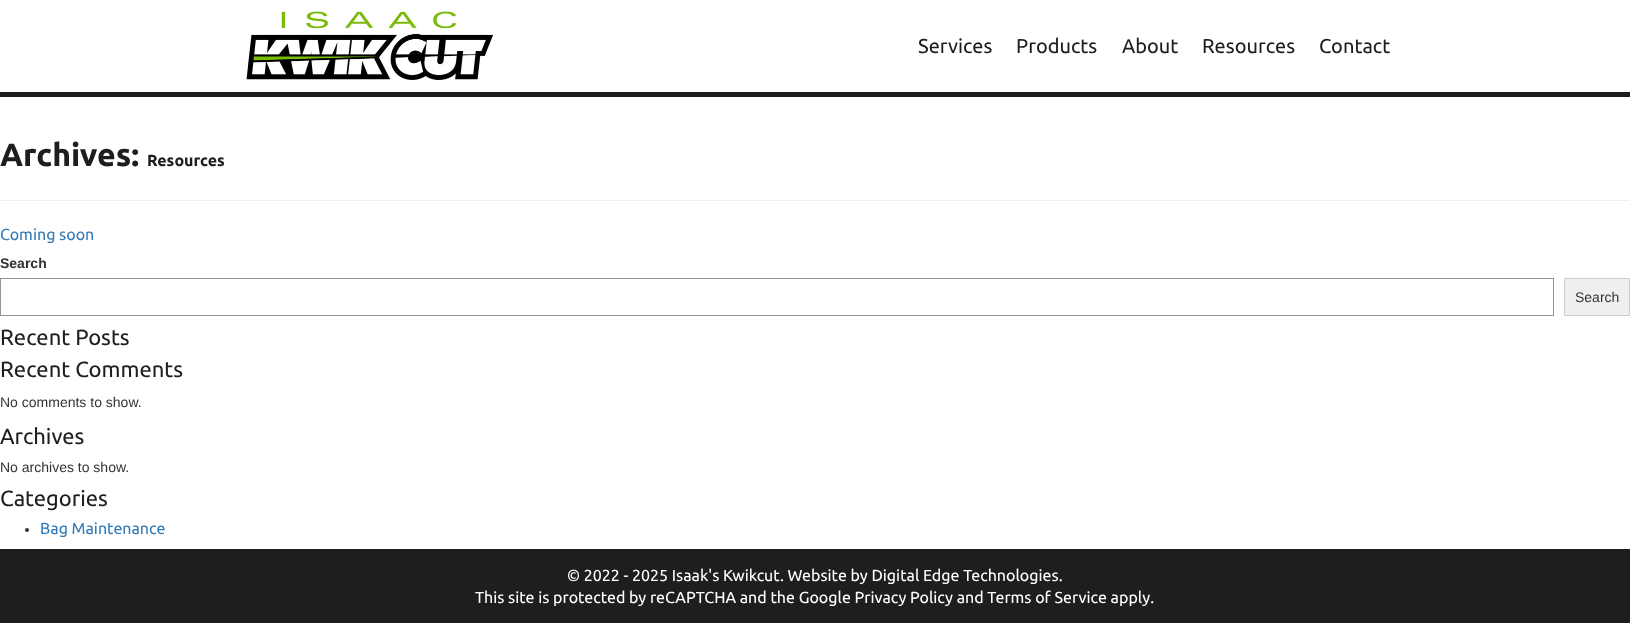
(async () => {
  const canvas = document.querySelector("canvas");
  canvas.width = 1630;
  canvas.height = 630;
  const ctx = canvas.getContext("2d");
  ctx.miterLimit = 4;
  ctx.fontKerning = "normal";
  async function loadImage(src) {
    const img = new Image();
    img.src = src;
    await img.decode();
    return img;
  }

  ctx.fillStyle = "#ffffff";
  ctx.fillRect(0, 0, 1630, 630);
  ctx.drawImage(await loadImage("img/1.png"), 246, 10, 248, 72);
  ctx.fillStyle = "#1e1e1e";
  ctx.fillRect(0, 92, 1630, 5);
  ctx.fillStyle = "#eeeeee";
  ctx.fillRect(0, 200, 1630, 1);
  ctx.strokeStyle = "#949494";
  ctx.strokeRect(0.5, 278.5, 1553, 37);
  ctx.fillStyle = "#efefef";
  ctx.beginPath();
  ctx.rect(1564.5, 278.5, 65, 37);
  ctx.fill();
  ctx.strokeStyle = "#cccccc";
  ctx.stroke();
  ctx.fillStyle = "#333333";
  ctx.beginPath();
  ctx.arc(27, 530, 2, 0, Math.PI * 2);
  ctx.fill();
  ctx.fillStyle = "#1e1e1e";
  ctx.fillRect(0, 549, 1630, 74);
  ctx.font = "20px Ubuntu";
  for (const [text, x, y] of [
    ["Services", 918, 53],
    ["Products", 1016, 53],
    ["About", 1122, 53],
    ["Resources", 1202, 53],
    ["Contact", 1319, 53],
  ]) {
    ctx.fillText(text, x, y);
  }
  ctx.font = "bold 32px Ubuntu";
  ctx.fillText("Archives:", 0, 166);
  ctx.font = "bold 16px Ubuntu";
  ctx.fillText("Resources", 147, 166);
  ctx.font = "16px Ubuntu";
  ctx.fillStyle = "#337ab7";
  ctx.fillText("Coming soon", 0, 240);
  ctx.font = "bold 14px Liberation Sans";
  ctx.fillStyle = "#333333";
  ctx.fillText("Search", 0, 268);
  ctx.font = "14px Liberation Sans";
  ctx.fillText("Search", 1575, 302);
  ctx.font = "22px Ubuntu";
  ctx.fillStyle = "#1e1e1e";
  ctx.fillText("Recent Posts", 0, 345);
  ctx.fillText("Recent Comments", 0, 377);
  ctx.font = "14px Liberation Sans";
  ctx.fillStyle = "#333333";
  ctx.fillText("No comments to show.", 0, 407);
  ctx.font = "22px Ubuntu";
  ctx.fillStyle = "#1e1e1e";
  ctx.fillText("Archives", 0, 444);
  ctx.font = "14px Liberation Sans";
  ctx.fillStyle = "#333333";
  ctx.fillText("No archives to show.", 0, 472);
  ctx.font = "22px Ubuntu";
  ctx.fillStyle = "#1e1e1e";
  ctx.fillText("Categories", 0, 506);
  ctx.font = "16px Ubuntu";
  ctx.fillStyle = "#337ab7";
  ctx.fillText("Bag Maintenance", 40, 534);
  ctx.fillStyle = "#ffffff";
  ctx.fillText("© 2022 - 2025 Isaak's Kwikcut. Website by Digital Edge Technologies.", 567, 581);
  ctx.fillText("This site is protected by reCAPTCHA and the Google Privacy Policy and Terms of Service apply.", 475, 603);
})();
